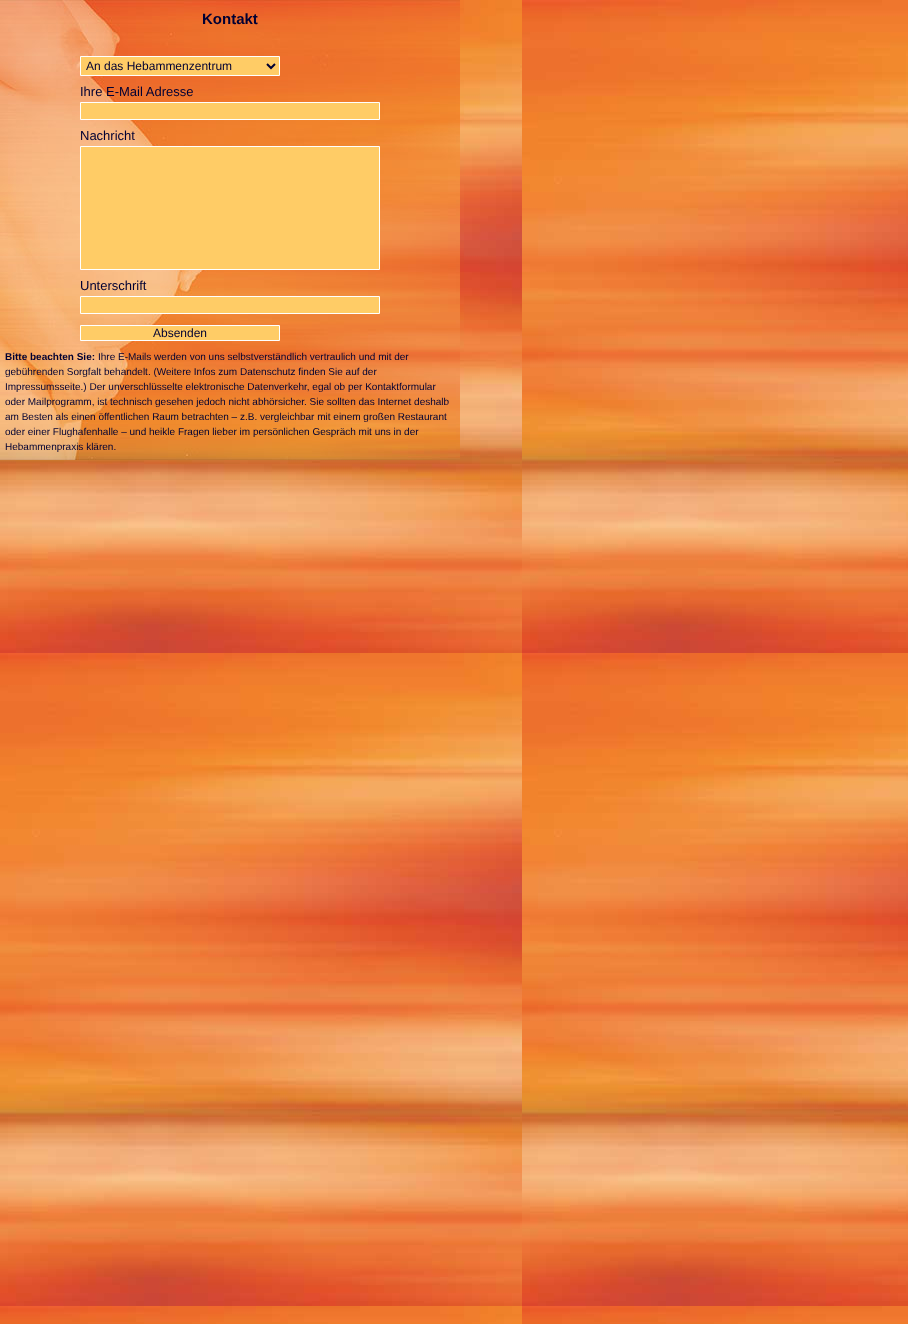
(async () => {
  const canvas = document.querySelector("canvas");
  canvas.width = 908;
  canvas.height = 1324;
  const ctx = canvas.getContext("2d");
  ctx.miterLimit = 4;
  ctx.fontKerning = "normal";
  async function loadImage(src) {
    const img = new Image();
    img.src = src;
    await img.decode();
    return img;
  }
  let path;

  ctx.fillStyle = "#ffffff";
  ctx.fillRect(0, 0, 908, 1324);
  ctx.drawImage(await loadImage("img/1.png"), 0, 0, 908, 1324);
  ctx.drawImage(await loadImage("img/2.png"), 0, 0, 460, 460);
  ctx.fillStyle = "#ffcc66";
  ctx.beginPath();
  ctx.rect(80.5, 56.5, 199, 19);
  ctx.fill();
  ctx.strokeStyle = "#ffffff";
  ctx.stroke();
  path = new Path2D("M267 64L271 68L275 64");
  ctx.strokeStyle = "#000033";
  ctx.lineWidth = 2;
  ctx.stroke(path);
  ctx.beginPath();
  ctx.rect(80.5, 102.5, 299, 17);
  ctx.fill();
  ctx.strokeStyle = "#ffffff";
  ctx.lineWidth = 1;
  ctx.stroke();
  ctx.beginPath();
  ctx.rect(80.5, 146.5, 299, 123);
  ctx.fill();
  ctx.stroke();
  ctx.beginPath();
  ctx.rect(80.5, 296.5, 299, 17);
  ctx.fill();
  ctx.stroke();
  ctx.beginPath();
  ctx.rect(80.5, 325.5, 199, 15);
  ctx.fill();
  ctx.stroke();
  ctx.font = "bold 15px Liberation Sans";
  ctx.fillStyle = "#000033";
  ctx.fillText("Kontakt", 202, 24);
  ctx.font = "12px Liberation Sans";
  ctx.fillText("An das Hebammenzentrum", 86, 70);
  ctx.font = "13px Liberation Sans";
  for (const [text, x, y] of [
    ["Ihre E-Mail Adresse", 80, 96],
    ["Nachricht", 80, 140],
    ["Unterschrift", 80, 290],
  ]) {
    ctx.fillText(text, x, y);
  }
  ctx.font = "12px Liberation Sans";
  ctx.fillText("Absenden", 153, 337);
  ctx.font = "bold 10px Liberation Sans";
  ctx.fillText("Bitte beachten Sie:", 5, 360);
  ctx.font = "10px Liberation Sans";
  for (const [text, x, y] of [
    ["Ihre E-Mails werden von uns selbstverständlich vertraulich und mit der", 98, 360],
    ["gebührenden Sorgfalt behandelt. (Weitere Infos zum Datenschutz finden Sie auf der", 5, 375],
    ["Impressumsseite.) Der unverschlüsselte elektronische Datenverkehr, egal ob per Kontaktformular", 5, 390],
    ["oder Mailprogramm, ist technisch gesehen jedoch nicht abhörsicher. Sie sollten das Internet deshalb", 5, 405],
    ["am Besten als einen öffentlichen Raum betrachten – z.B. vergleichbar mit einem großen Restaurant", 5, 420],
    ["oder einer Flughafenhalle – und heikle Fragen lieber im persönlichen Gespräch mit uns in der", 5, 435],
    ["Hebammenpraxis klären.", 5, 450],
  ]) {
    ctx.fillText(text, x, y);
  }
})();
